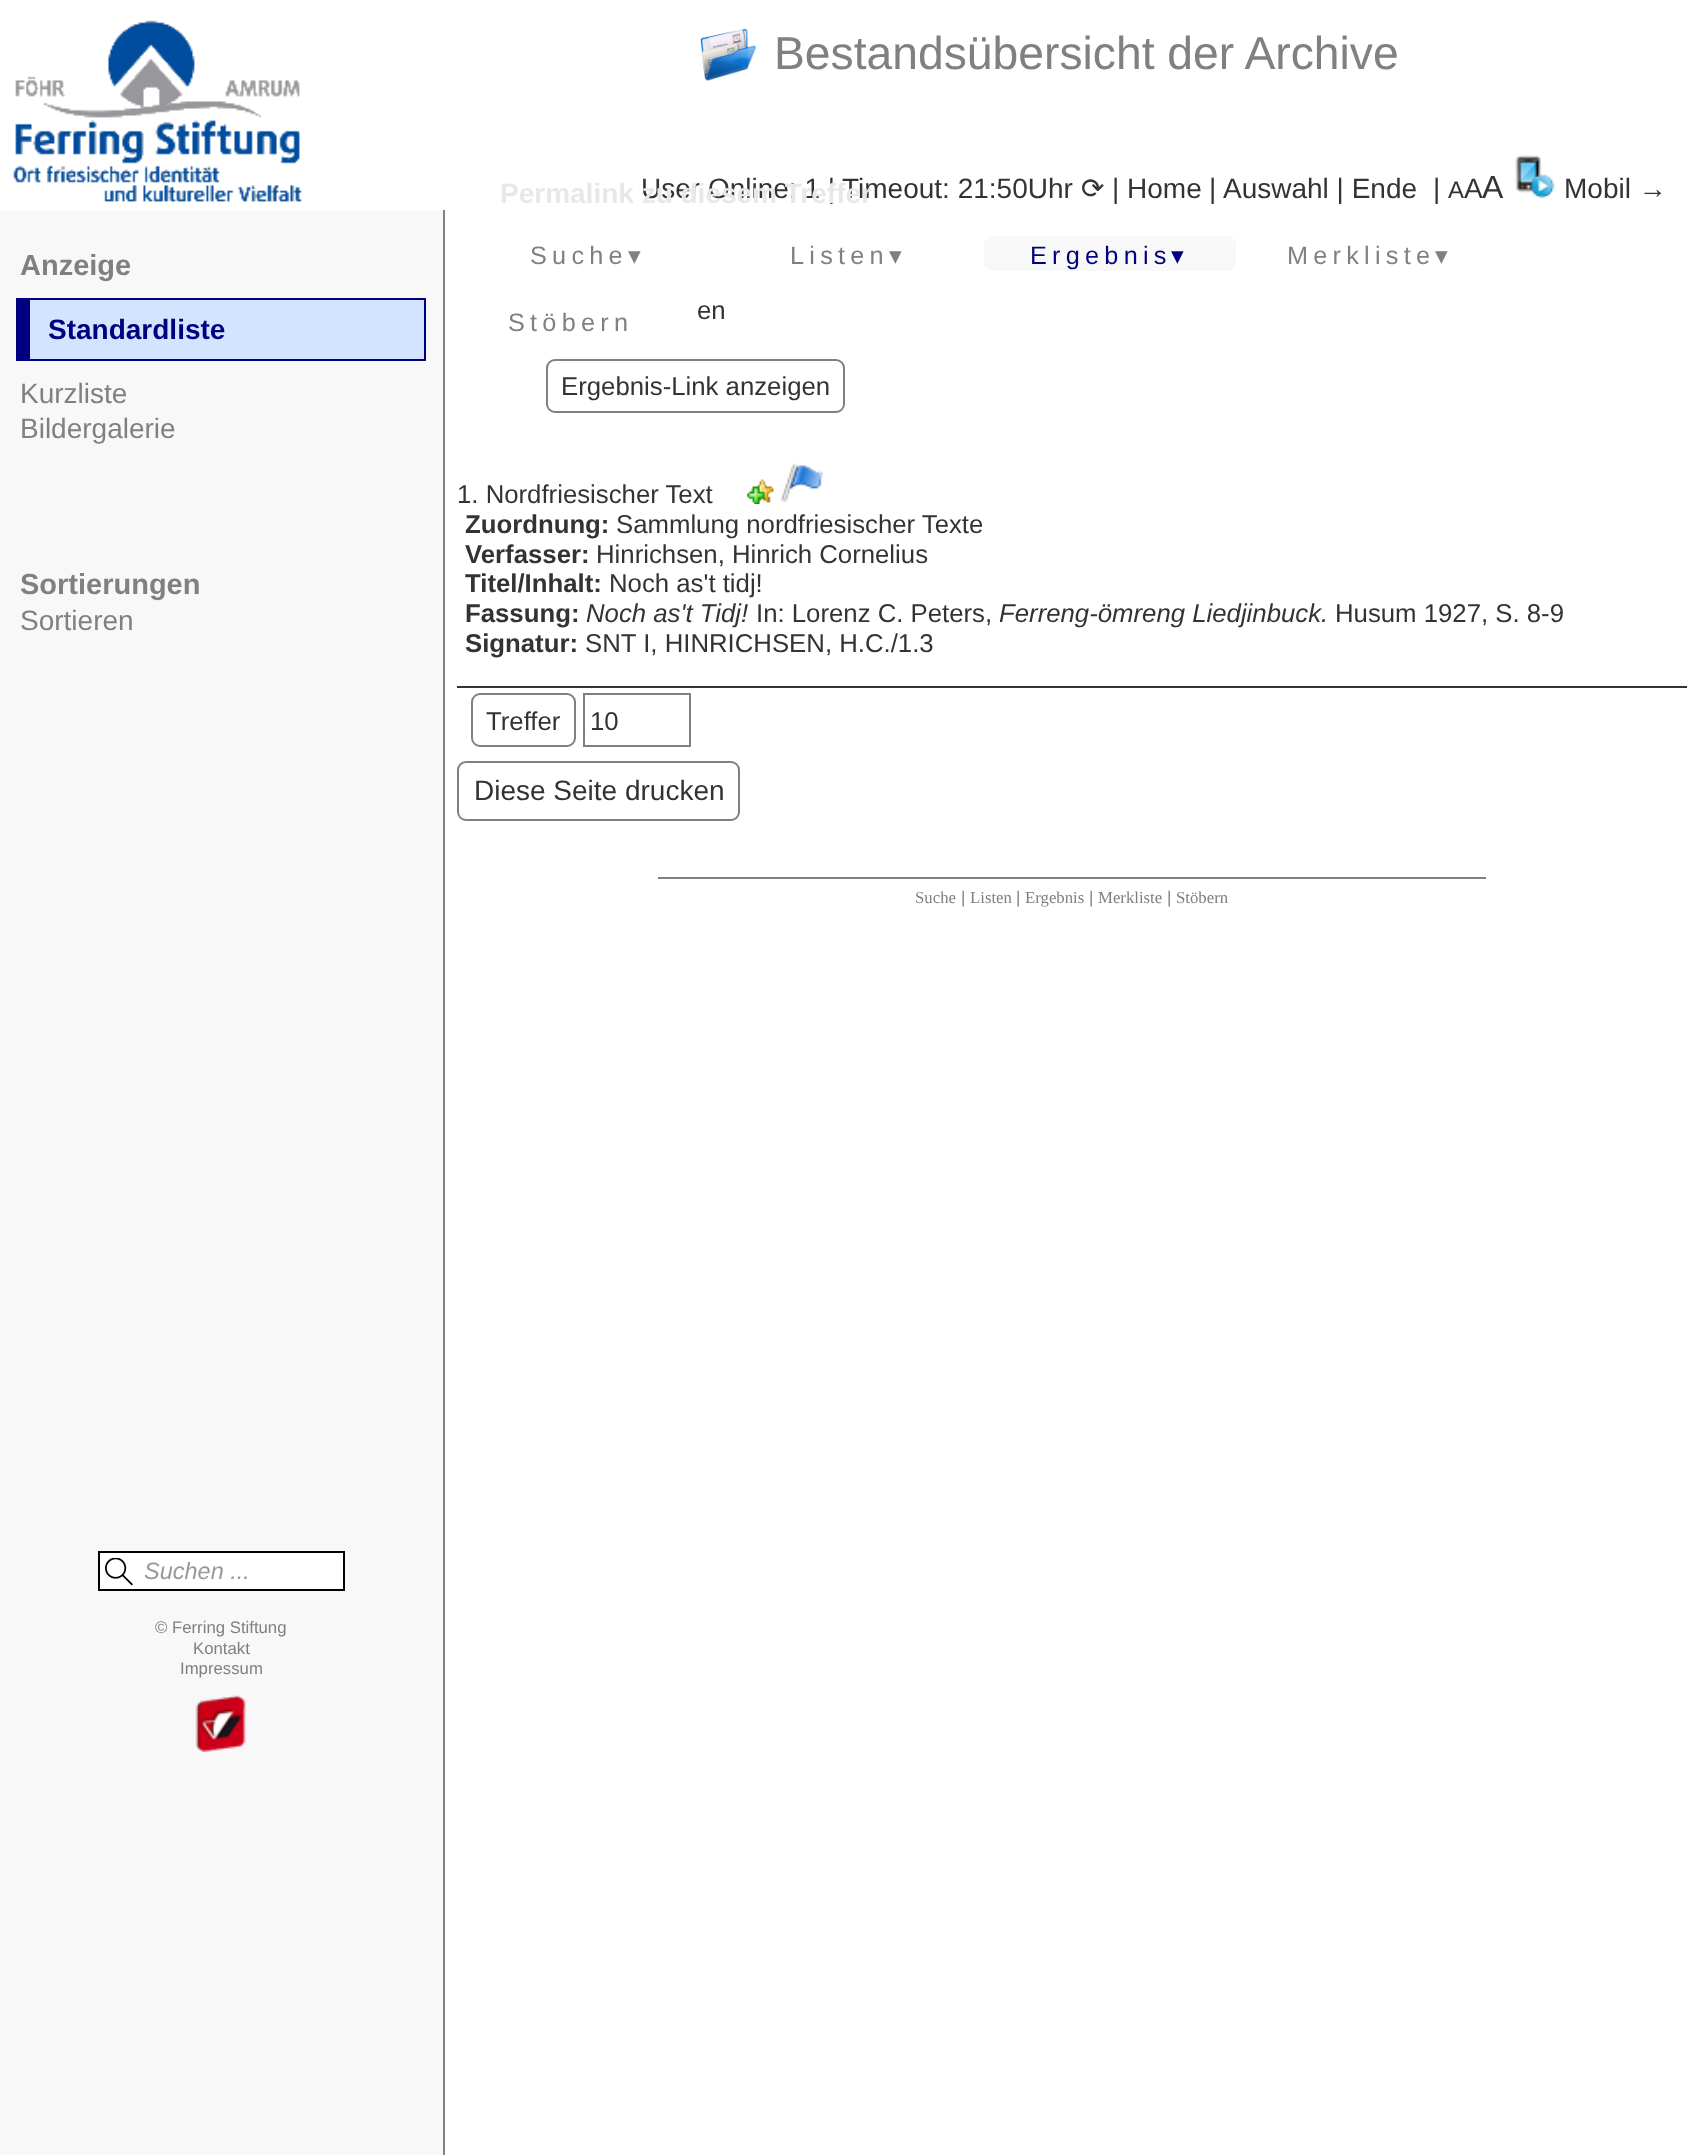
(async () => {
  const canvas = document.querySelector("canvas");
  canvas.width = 1698;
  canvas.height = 2155;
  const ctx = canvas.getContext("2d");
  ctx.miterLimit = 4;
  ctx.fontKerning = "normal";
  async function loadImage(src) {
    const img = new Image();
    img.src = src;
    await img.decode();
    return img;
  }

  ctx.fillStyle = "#ffffff";
  ctx.fillRect(0, 0, 1698, 2155);
  ctx.drawImage(await loadImage("img/1.png"), 13, 20, 289, 182);
  ctx.drawImage(await loadImage("img/2.png"), 700, 28, 56, 53);
  ctx.drawImage(await loadImage("img/3.png"), 1515, 155, 40, 43);
  for (const [x, y, w, h, color] of [
    [0, 210, 443, 1945, "#f8f8f8"],
    [443, 210, 2, 1945, "#808080"],
    [30, 300, 394, 59, "#d3e4ff"],
    [30, 298, 395, 2, "#000080"],
    [424, 298, 2, 63, "#000080"],
    [30, 359, 395, 2, "#000080"],
    [16, 298, 14, 63, "#000080"],
    [100, 1553, 243, 36, "#ffffff"],
  ]) {
    ctx.fillStyle = color;
    ctx.fillRect(x, y, w, h);
  }
  ctx.drawImage(await loadImage("img/4.png"), 105, 1558, 28, 28);
  ctx.strokeStyle = "#000000";
  ctx.lineWidth = 2;
  ctx.strokeRect(99, 1552, 245, 38);
  ctx.drawImage(await loadImage("img/5.png"), 195, 1695, 51, 57);
  ctx.fillStyle = "#f8f8f8";
  ctx.beginPath();
  ctx.roundRect(984, 236, 252, 35, 9);
  ctx.fill();
  ctx.beginPath();
  ctx.roundRect(547, 360, 297, 52, 8);
  ctx.strokeStyle = "#808080";
  ctx.stroke();
  ctx.drawImage(await loadImage("img/6.png"), 747, 479, 27, 25);
  ctx.drawImage(await loadImage("img/7.png"), 780, 463, 43, 40);
  ctx.fillStyle = "#333333";
  ctx.fillRect(457, 686, 1230, 2);
  ctx.beginPath();
  ctx.roundRect(472, 694, 103, 52, 8);
  ctx.stroke();
  ctx.strokeRect(584, 694, 106, 52);
  ctx.beginPath();
  ctx.roundRect(458, 762, 281, 58, 8);
  ctx.stroke();
  ctx.fillStyle = "#808080";
  ctx.fillRect(658, 877, 828, 2);
  ctx.font = "46.25px Liberation Sans";
  ctx.fillText("Bestandsübersicht der Archive", 774, 69);
  ctx.font = "28px Liberation Sans";
  ctx.fillStyle = "#333333";
  ctx.fillText("User Online: 1 |", 641, 198);
  ctx.fillText("Timeout: 21:50Uhr", 842, 198);
  ctx.font = "28px DejaVu Sans";
  ctx.fillText("⟳", 1081, 198);
  ctx.font = "28px Liberation Sans";
  for (const [text, x, y] of [
    ["| Home", 1112, 198],
    ["|", 1209, 198],
    ["Auswahl | Ende", 1223, 198],
    ["|", 1433, 198],
  ]) {
    ctx.fillText(text, x, y);
  }
  ctx.font = "24px Liberation Sans";
  ctx.fillText("A", 1448, 198);
  ctx.font = "28px Liberation Sans";
  ctx.fillText("A", 1464, 198);
  ctx.font = "32px Liberation Sans";
  ctx.fillText("A", 1482, 198);
  ctx.font = "28px Liberation Sans";
  ctx.fillText("Mobil →", 1564, 198);
  ctx.font = "bold 29px Liberation Sans";
  ctx.fillStyle = "#808080";
  ctx.fillText("Anzeige", 20, 275);
  ctx.font = "bold 28px Liberation Sans";
  ctx.fillStyle = "#000080";
  ctx.fillText("Standardliste", 48, 339);
  ctx.font = "28px Liberation Sans";
  ctx.fillStyle = "#808080";
  ctx.fillText("Kurzliste", 20, 403);
  ctx.fillText("Bildergalerie", 20, 438);
  ctx.font = "bold 29px Liberation Sans";
  ctx.fillText("Sortierungen", 20, 594);
  ctx.font = "28px Liberation Sans";
  ctx.fillText("Sortieren", 20, 630);
  ctx.font = "italic 23.5px Liberation Sans";
  ctx.fillStyle = "#999999";
  ctx.fillText("Suchen ...", 144, 1579);
  ctx.font = "16.75px Liberation Sans";
  ctx.fillStyle = "#808080";
  for (const [text, x, y] of [
    ["© Ferring Stiftung", 155, 1633],
    ["Kontakt", 193, 1654],
    ["Impressum", 180, 1674],
  ]) {
    ctx.fillText(text, x, y);
  }
  ctx.font = "bold 28px Liberation Sans";
  ctx.fillStyle = "#e8e8e8";
  ctx.fillText("Permalink zu diesem Treffer", 500, 203);
  ctx.letterSpacing = "5.25px";
  ctx.font = "25.25px Liberation Sans";
  ctx.fillStyle = "#808080";
  ctx.fillText("Suche", 530, 264);
  ctx.font = "25.25px DejaVu Sans";
  ctx.fillText("▾", 628, 264);
  ctx.font = "25.25px Liberation Sans";
  ctx.fillText("Listen", 790, 264);
  ctx.font = "25.25px DejaVu Sans";
  ctx.fillText("▾", 889, 264);
  ctx.font = "25.25px Liberation Sans";
  ctx.fillStyle = "#000080";
  ctx.fillText("Ergebnis", 1030, 264);
  ctx.font = "25.25px DejaVu Sans";
  ctx.fillText("▾", 1171, 264);
  ctx.font = "25.25px Liberation Sans";
  ctx.fillStyle = "#808080";
  ctx.fillText("Merkliste", 1287, 264);
  ctx.font = "25.25px DejaVu Sans";
  ctx.fillText("▾", 1435, 264);
  ctx.font = "25.25px Liberation Sans";
  ctx.fillText("Stöbern", 508, 331);
  ctx.letterSpacing = "0px";
  ctx.font = "25.75px Liberation Sans";
  ctx.fillStyle = "#333333";
  for (const [text, x, y] of [
    ["en", 697, 319],
    ["Ergebnis-Link anzeigen", 561, 395],
    ["1. Nordfriesischer Text", 457, 503],
  ]) {
    ctx.fillText(text, x, y);
  }
  ctx.font = "bold 25.75px Liberation Sans";
  ctx.fillText("Zuordnung:", 465, 533);
  ctx.font = "25.75px Liberation Sans";
  ctx.fillText("Sammlung nordfriesischer Texte", 616, 533);
  ctx.font = "bold 25.75px Liberation Sans";
  ctx.fillText("Verfasser:", 465, 563);
  ctx.font = "25.75px Liberation Sans";
  ctx.fillText("Hinrichsen, Hinrich Cornelius", 596, 563);
  ctx.font = "bold 25.75px Liberation Sans";
  ctx.fillText("Titel/Inhalt:", 465, 592);
  ctx.font = "25.75px Liberation Sans";
  ctx.fillText("Noch as't tidj!", 609, 592);
  ctx.font = "bold 25.75px Liberation Sans";
  ctx.fillText("Fassung:", 465, 622);
  ctx.font = "italic 25.75px Liberation Sans";
  ctx.fillText("Noch as't Tidj!", 586, 622);
  ctx.font = "25.75px Liberation Sans";
  ctx.fillText("In: Lorenz C. Peters,", 756, 622);
  ctx.font = "italic 25.75px Liberation Sans";
  ctx.fillText("Ferreng-ömreng Liedjinbuck.", 999, 622);
  ctx.font = "25.75px Liberation Sans";
  ctx.fillText("Husum 1927, S. 8-9", 1335, 622);
  ctx.font = "bold 25.75px Liberation Sans";
  ctx.fillText("Signatur:", 465, 652);
  ctx.font = "25.75px Liberation Sans";
  for (const [text, x, y] of [
    ["SNT I, HINRICHSEN, H.C./1.3", 585, 652],
    ["Treffer", 486, 730],
    ["10", 590, 730],
  ]) {
    ctx.fillText(text, x, y);
  }
  ctx.font = "28px Liberation Sans";
  ctx.fillText("Diese Seite drucken", 474, 800);
  ctx.font = "16.75px Liberation Serif";
  ctx.fillStyle = "#808080";
  ctx.fillText("Suche", 915, 903);
  ctx.font = "16.75px Liberation Sans";
  ctx.fillText("|", 961, 903);
  ctx.font = "16.75px Liberation Serif";
  ctx.fillText("Listen", 970, 903);
  ctx.font = "16.75px Liberation Sans";
  ctx.fillText("|", 1016, 903);
  ctx.font = "16.75px Liberation Serif";
  ctx.fillText("Ergebnis", 1025, 903);
  ctx.font = "16.75px Liberation Sans";
  ctx.fillText("|", 1089, 903);
  ctx.font = "16.75px Liberation Serif";
  ctx.fillText("Merkliste", 1098, 903);
  ctx.font = "16.75px Liberation Sans";
  ctx.fillText("|", 1167, 903);
  ctx.font = "16.75px Liberation Serif";
  ctx.fillText("Stöbern", 1176, 903);
})();
